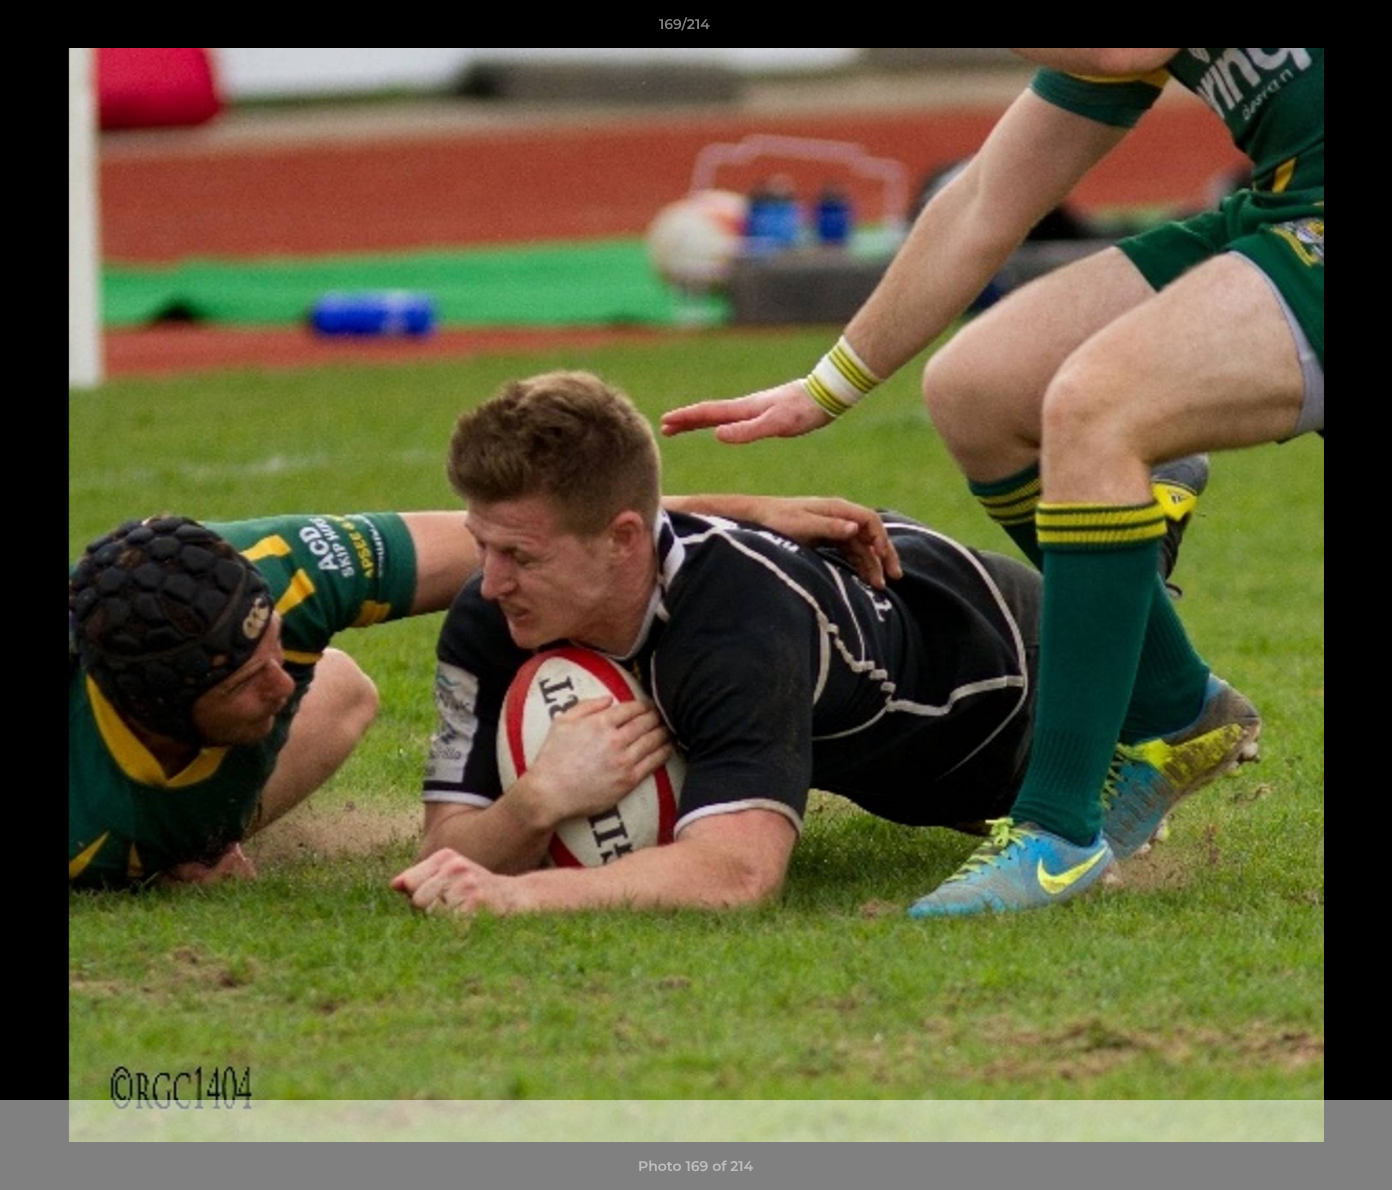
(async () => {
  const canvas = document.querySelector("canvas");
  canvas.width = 1392;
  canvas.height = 1190;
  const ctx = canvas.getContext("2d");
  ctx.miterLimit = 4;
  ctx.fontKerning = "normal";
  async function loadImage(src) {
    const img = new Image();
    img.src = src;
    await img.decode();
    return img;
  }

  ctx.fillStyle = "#000000";
  ctx.fillRect(0, 0, 1392, 1190);
  ctx.drawImage(await loadImage("img/1.png"), 68, 48, 1256, 1094);
  ctx.font = "600 14px Montserrat";
  ctx.fillStyle = "#808080";
  ctx.fillText("169/214", 659, 29);
  ctx.fillText("Photo 169 of 214", 638, 1171);
  ctx.fillStyle = "rgba(255, 255, 255, 0.5)";
  ctx.fillRect(0, 1100, 1392, 90);
})();
